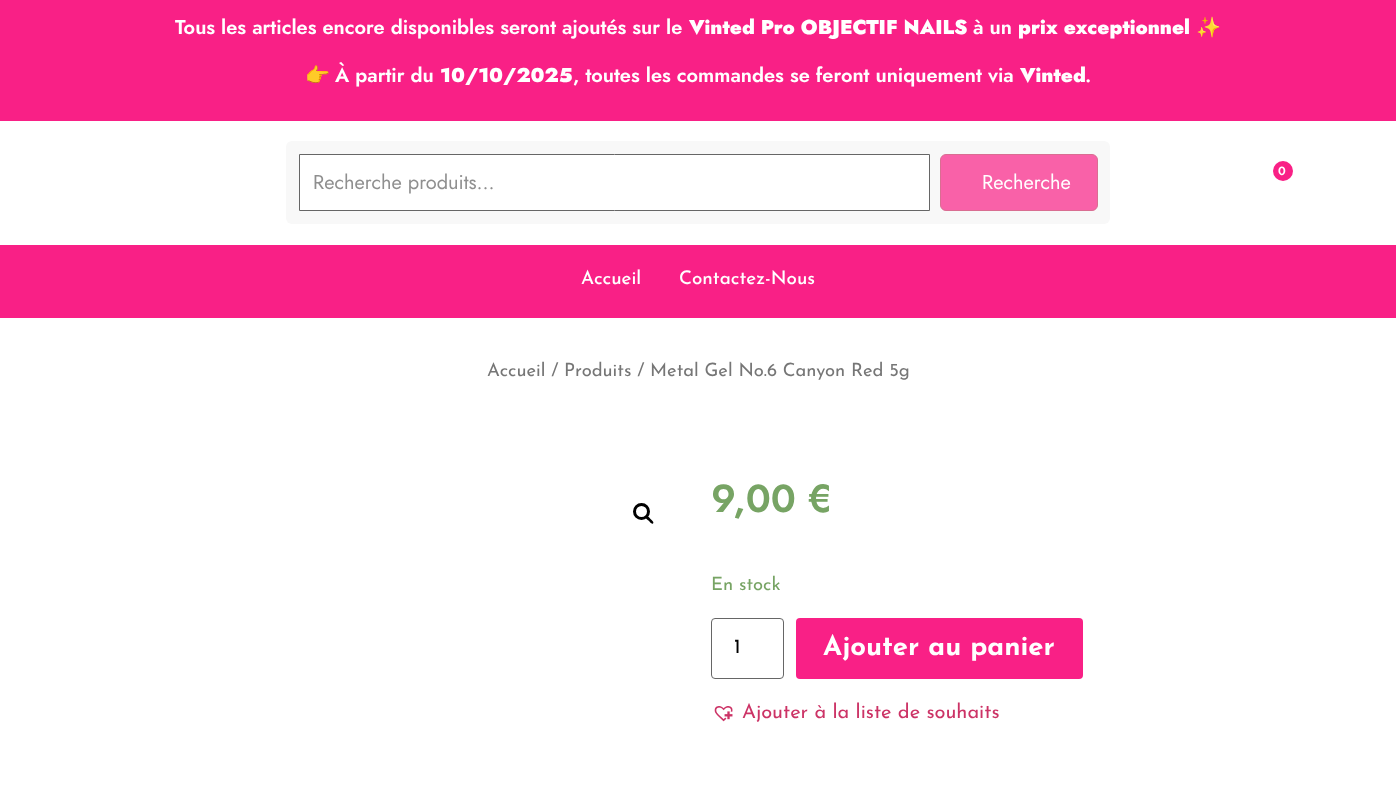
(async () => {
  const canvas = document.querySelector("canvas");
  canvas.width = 1396;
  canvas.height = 794;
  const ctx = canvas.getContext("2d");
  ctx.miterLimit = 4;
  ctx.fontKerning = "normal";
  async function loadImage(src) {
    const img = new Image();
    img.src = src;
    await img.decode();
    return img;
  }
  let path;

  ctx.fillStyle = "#ffffff";
  ctx.fillRect(0, 0, 1396, 794);
  ctx.fillStyle = "#f92086";
  ctx.fillRect(0, 0, 1396, 121);
  ctx.beginPath();
  ctx.arc(1283, 171, 10, 0, Math.PI * 2);
  ctx.fill();
  ctx.fillStyle = "#f8f8f8";
  ctx.beginPath();
  ctx.roundRect(286, 141, 824, 83, 6);
  ctx.fill();
  ctx.fillStyle = "#ffffff";
  ctx.beginPath();
  ctx.rect(299.5, 154.5, 630, 56);
  ctx.fill();
  ctx.strokeStyle = "#666666";
  ctx.stroke();
  ctx.fillStyle = "#f961a8";
  ctx.beginPath();
  ctx.roundRect(940.5, 154.5, 157, 56, 5.5);
  ctx.fill();
  ctx.strokeStyle = "#d96e92";
  ctx.stroke();
  ctx.fillStyle = "#f92086";
  ctx.fillRect(0, 245, 1396, 73);
  ctx.beginPath();
  ctx.arc(641.5, 511.5, 7, 0, Math.PI * 2);
  ctx.strokeStyle = "#000000";
  ctx.lineWidth = 3;
  ctx.stroke();
  ctx.fillStyle = "#000000";
  path = new Path2D("M646 516C647.5 515 649.5 518 650.5 519C651 519.5 654.5 522 653 523.5C651.5 524.5 649.5 521.5 648.5 520.5C647.5 520 644.5 517.5 646 516Z");
  ctx.fill(path);
  ctx.beginPath();
  ctx.roundRect(711.5, 618.5, 72, 60, 3.5);
  ctx.strokeStyle = "#666666";
  ctx.lineWidth = 1;
  ctx.stroke();
  ctx.fillStyle = "#f92086";
  ctx.beginPath();
  ctx.roundRect(796, 618, 287, 61, 4);
  ctx.fill();
  ctx.drawImage(await loadImage("img/1.png"), 714, 706, 19, 16);
  ctx.font = "600 20px Jost";
  ctx.fillStyle = "#ffffff";
  ctx.fillText("Tous les articles encore disponibles seront ajoutés sur le", 175, 34);
  ctx.font = "900 20px Jost";
  ctx.fillText("Vinted Pro OBJECTIF NAILS", 689, 34);
  ctx.font = "600 20px Jost";
  ctx.fillText("à un", 973, 34);
  ctx.font = "900 20px Jost";
  ctx.fillText("prix exceptionnel", 1018, 34);
  ctx.font = "bold 20px Noto Color Emoji";
  ctx.fillText("✨", 1196, 34);
  ctx.fillText("👉", 305, 82);
  ctx.font = "600 20px Jost";
  ctx.fillText("À partir du", 335, 82);
  ctx.font = "900 20px Jost";
  ctx.fillText("10/10/2025", 440, 82);
  ctx.font = "600 20px Jost";
  ctx.fillText(", toutes les commandes se feront uniquement via", 573, 82);
  ctx.font = "900 20px Jost";
  ctx.fillText("Vinted", 1020, 82);
  ctx.font = "600 20px Jost";
  ctx.fillText(".", 1085, 82);
  ctx.font = "600 12px Jost";
  ctx.fillText("0", 1278, 175);
  ctx.font = "20px Jost";
  ctx.fillStyle = "#8f8f8f";
  ctx.fillText("Recherche produits...", 313, 189);
  ctx.fillStyle = "#ffffff";
  ctx.fillText("Recherche", 982, 189);
  ctx.font = "500 18.75px Josefin Sans";
  ctx.fillText("Accueil", 581, 284);
  ctx.fillText("Contactez-Nous", 679, 284);
  ctx.font = "18.4px Josefin Sans";
  ctx.fillStyle = "#767676";
  ctx.fillText("Accueil / Produits / Metal Gel No.6 Canyon Red 5g", 487, 376);
  ctx.font = "600 39px Jost";
  ctx.fillStyle = "#77a464";
  ctx.fillText("9,00 €", 711, 512);
  ctx.font = "18.4px Josefin Sans";
  ctx.fillText("En stock", 711, 590);
  ctx.font = "20px Josefin Sans";
  ctx.fillStyle = "#000000";
  ctx.fillText("1", 734, 653);
  ctx.font = "bold 27.5px Josefin Sans";
  ctx.fillStyle = "#ffffff";
  ctx.fillText("Ajouter au panier", 823, 655);
  ctx.font = "20px Josefin Sans";
  ctx.fillStyle = "#cc3366";
  ctx.fillText("Ajouter à la liste de souhaits", 742, 718);
})();
